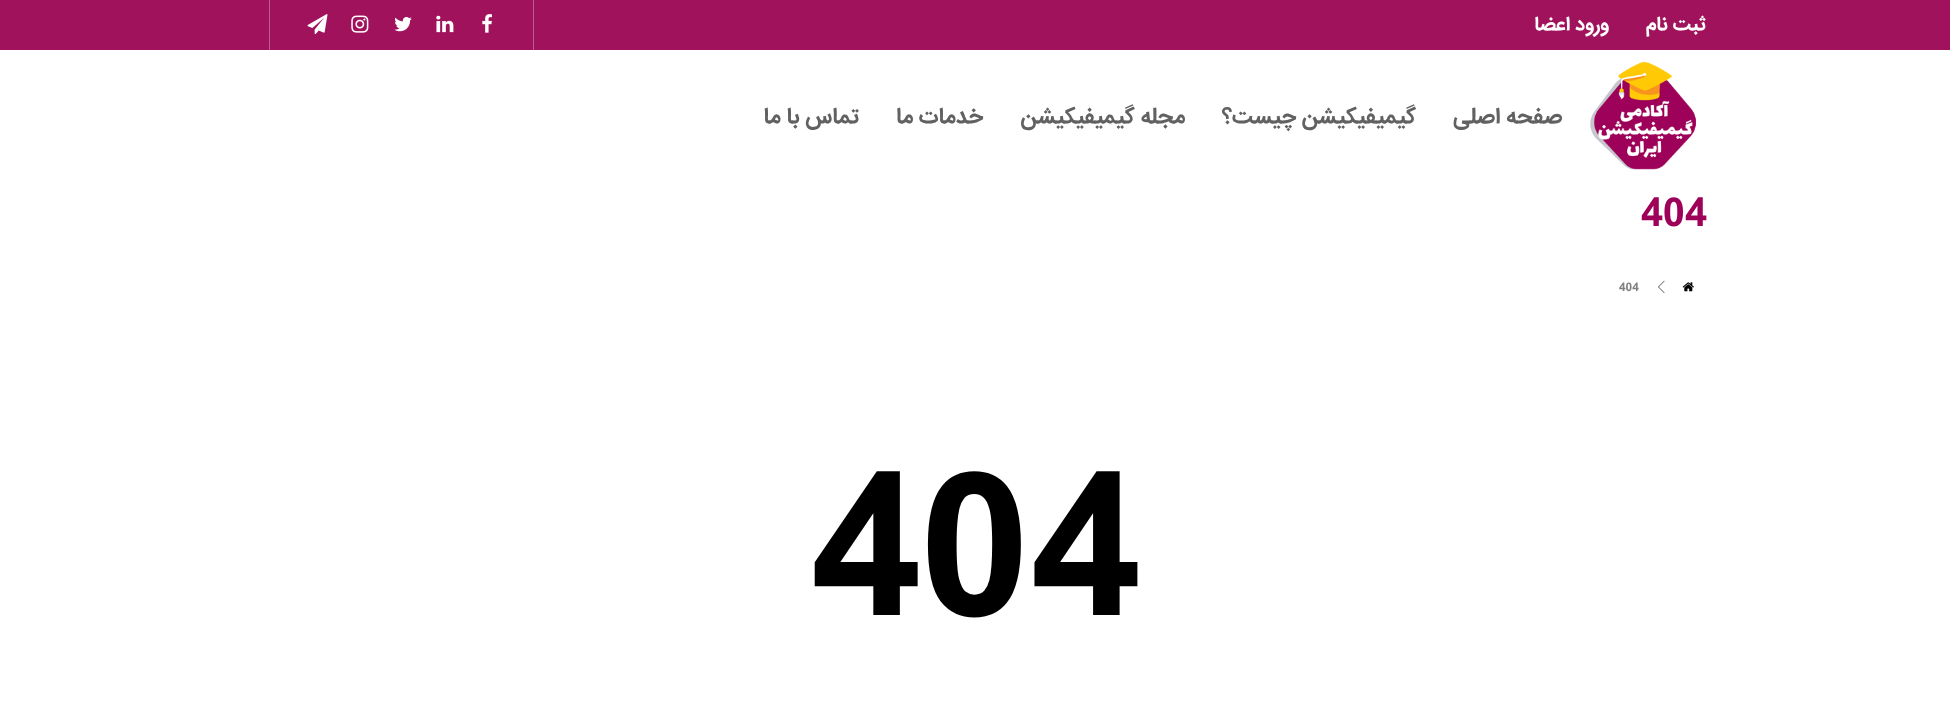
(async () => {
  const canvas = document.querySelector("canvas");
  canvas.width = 1950;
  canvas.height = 727;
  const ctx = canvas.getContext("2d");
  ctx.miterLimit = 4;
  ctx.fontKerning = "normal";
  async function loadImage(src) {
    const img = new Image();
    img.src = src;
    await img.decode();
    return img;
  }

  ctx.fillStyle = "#ffffff";
  ctx.fillRect(0, 0, 1950, 727);
  ctx.fillStyle = "#a0125c";
  ctx.fillRect(0, 0, 1950, 50);
  ctx.fillStyle = "#bd598d";
  ctx.fillRect(533, 0, 1, 50);
  ctx.drawImage(await loadImage("img/1.png"), 482, 14, 10, 19);
  ctx.drawImage(await loadImage("img/2.png"), 436, 15, 18, 18);
  ctx.drawImage(await loadImage("img/3.png"), 394, 17, 18, 15);
  ctx.drawImage(await loadImage("img/4.png"), 351, 15, 18, 18);
  ctx.drawImage(await loadImage("img/5.png"), 307, 14, 21, 21);
  ctx.fillRect(269, 0, 1, 50);
  ctx.drawImage(await loadImage("img/6.png"), 1590, 61, 106, 109);
  ctx.drawImage(await loadImage("img/7.png"), 1682, 282, 12, 10);
  ctx.drawImage(await loadImage("img/8.png"), 1658, 280, 7, 13);
  ctx.direction = "rtl";
  ctx.font = "bold 17.5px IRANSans";
  ctx.fillStyle = "#ffffff";
  ctx.fillText("ثبت نام", 1706, 30);
  ctx.fillText("ورود اعضا", 1609, 30);
  ctx.font = "bold 20px IRANSans";
  ctx.fillStyle = "#616161";
  for (const [text, x, y] of [
    ["صفحه اصلی", 1562, 123],
    ["گیمیفیکیشن چیست؟", 1416, 123],
    ["مجله گیمیفیکیشن", 1185, 123],
    ["خدمات ما", 983, 123],
    ["تماس با ما", 859, 123],
  ]) {
    ctx.fillText(text, x, y);
  }
  ctx.direction = "ltr";
  ctx.font = "bold 40px IRANSans";
  ctx.fillStyle = "#9e015a";
  ctx.fillText("404", 1641, 226);
  ctx.font = "bold 12px IRANSans";
  ctx.fillStyle = "#808080";
  ctx.fillText("404", 1619, 291);
  ctx.font = "bold 200px IRANSans";
  ctx.fillStyle = "#000000";
  ctx.fillText("404", 811, 615);
})();
